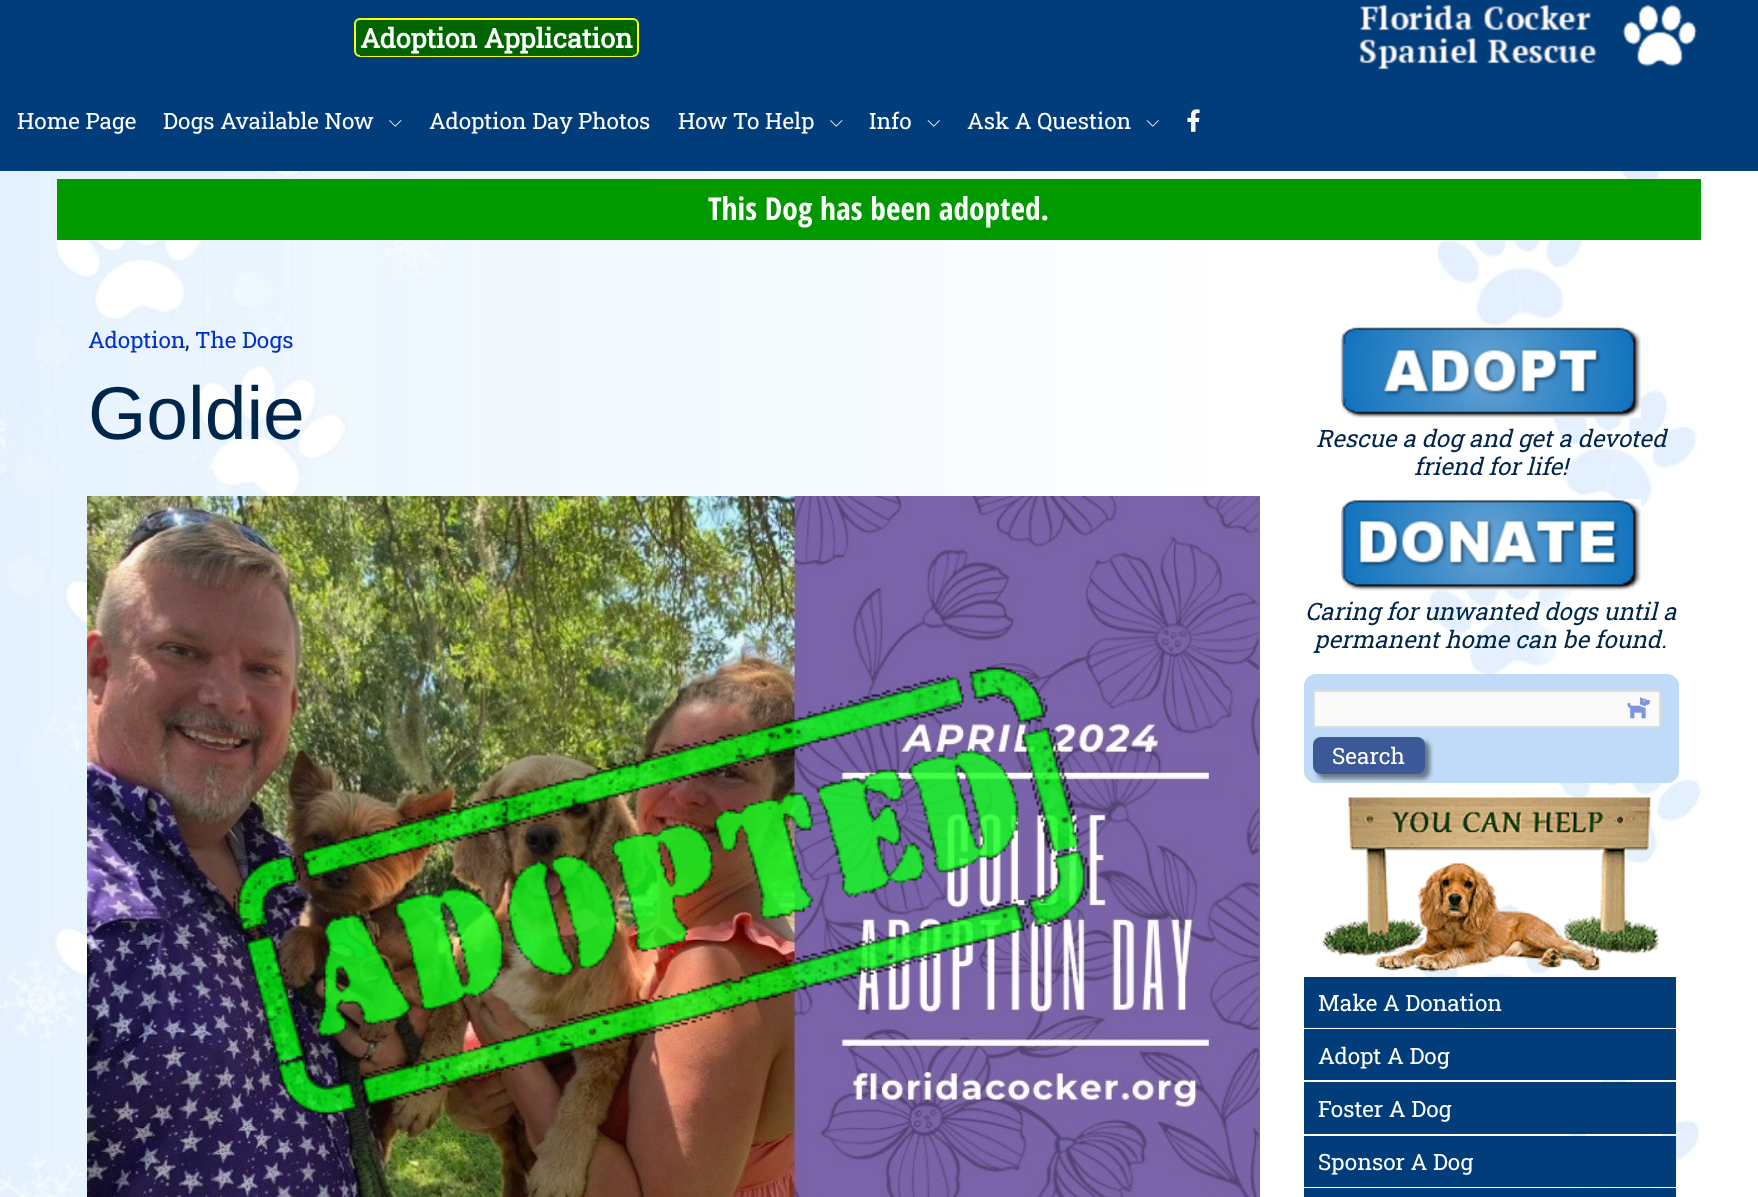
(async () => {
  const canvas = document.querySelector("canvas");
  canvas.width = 1758;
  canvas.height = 1197;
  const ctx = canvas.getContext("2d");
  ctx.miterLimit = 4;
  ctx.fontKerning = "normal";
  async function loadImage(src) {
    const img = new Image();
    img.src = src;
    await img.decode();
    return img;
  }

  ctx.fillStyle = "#ffffff";
  ctx.fillRect(0, 0, 1758, 1197);
  ctx.drawImage(await loadImage("img/1.png"), 0, 171, 1755, 1026);
  ctx.fillStyle = "#003d7a";
  ctx.fillRect(0, 0, 1758, 171);
  ctx.fillStyle = "#006400";
  ctx.beginPath();
  ctx.roundRect(355, 19, 283, 37, 5);
  ctx.fill();
  ctx.strokeStyle = "#ffff00";
  ctx.lineWidth = 2;
  ctx.stroke();
  ctx.fillRect(360, 55, 273, 1);
  ctx.drawImage(await loadImage("img/2.png"), 1358, 4, 340, 66);
  ctx.drawImage(await loadImage("img/3.png"), 389, 120, 13, 7);
  ctx.drawImage(await loadImage("img/3.png"), 830, 120, 13, 7);
  ctx.drawImage(await loadImage("img/4.png"), 927, 120, 13, 7);
  ctx.drawImage(await loadImage("img/4.png"), 1146, 120, 13, 7);
  ctx.drawImage(await loadImage("img/5.png"), 1187, 109, 13, 23);
  ctx.fillStyle = "#009900";
  ctx.fillRect(57, 179, 1644, 61);
  ctx.drawImage(await loadImage("img/6.png"), 87, 496, 1173, 701);
  ctx.drawImage(await loadImage("img/7.png"), 233, 666, 857, 449);
  ctx.drawImage(await loadImage("img/8.png"), 1341, 327, 300, 91);
  ctx.drawImage(await loadImage("img/9.png"), 1341, 499, 300, 92);
  ctx.fillStyle = "#c0dbf7";
  ctx.beginPath();
  ctx.roundRect(1304, 674, 375, 109, 12);
  ctx.fill();
  ctx.fillStyle = "#fafafa";
  ctx.beginPath();
  ctx.roundRect(1314, 691, 346, 36, 2);
  ctx.fill();
  ctx.strokeStyle = "#dddddd";
  ctx.stroke();
  ctx.drawImage(await loadImage("img/10.png"), 1627, 697, 23, 22);
  ctx.fillStyle = "rgba(0, 0, 0, 0.45)";
  ctx.filter = "blur(2px)";
  ctx.beginPath();
  ctx.roundRect(1317, 741, 113, 38, 8);
  ctx.fill();
  ctx.filter = "none";
  ctx.fillStyle = "#3b5998";
  ctx.beginPath();
  ctx.roundRect(1313, 737, 112, 37, 8);
  ctx.fill();
  ctx.drawImage(await loadImage("img/11.png"), 1321, 797, 338, 175);
  for (const [x, y, w, h, color] of [
    [1304, 977, 372, 51, "#003d7a"],
    [1304, 1029, 372, 51, "#003d7a"],
    [1304, 1082, 372, 52, "#003d7a"],
    [1304, 1136, 372, 51, "#003d7a"],
    [1304, 1188, 372, 9, "#003d7a"],
  ]) {
    ctx.fillStyle = color;
    ctx.fillRect(x, y, w, h);
  }
  ctx.font = "bold 27px Roboto Slab";
  ctx.fillStyle = "#ffffff";
  ctx.fillText("Adoption Application", 360, 48);
  ctx.font = "22.5px Roboto Slab";
  for (const [text, x, y] of [
    ["Home Page", 17, 129],
    ["Dogs Available Now", 163, 129],
    ["Adoption Day Photos", 429, 129],
    ["How To Help", 678, 129],
    ["Info", 869, 129],
    ["Ask A Question", 967, 129],
  ]) {
    ctx.fillText(text, x, y);
  }
  ctx.font = "bold 31.5px Open Sans Condensed";
  ctx.fillText("This Dog has been adopted.", 708, 220);
  ctx.font = "22.5px Roboto Slab";
  ctx.fillStyle = "#0030cc";
  ctx.fillText("Adoption", 88, 348);
  ctx.fillStyle = "#00254b";
  ctx.fillText(",", 185, 348);
  ctx.fillStyle = "#0030cc";
  ctx.fillText("The Dogs", 195, 348);
  ctx.font = "75px Liberation Sans";
  ctx.fillStyle = "#00254b";
  ctx.fillText("Goldie", 88, 439);
  ctx.font = "italic 24px Roboto Slab";
  for (const [text, x, y] of [
    ["Rescue a dog and get a devoted", 1316, 447],
    ["friend for life!", 1414, 475],
    ["Caring for unwanted dogs until a", 1305, 620],
    ["permanent home can be found.", 1314, 648],
  ]) {
    ctx.fillText(text, x, y);
  }
  ctx.font = "22.5px Roboto Slab";
  ctx.fillStyle = "#ffffff";
  for (const [text, x, y] of [
    ["Search", 1332, 764],
    ["Make A Donation", 1318, 1011],
    ["Adopt A Dog", 1318, 1064],
    ["Foster A Dog", 1318, 1117],
    ["Sponsor A Dog", 1318, 1170],
  ]) {
    ctx.fillText(text, x, y);
  }
})();
